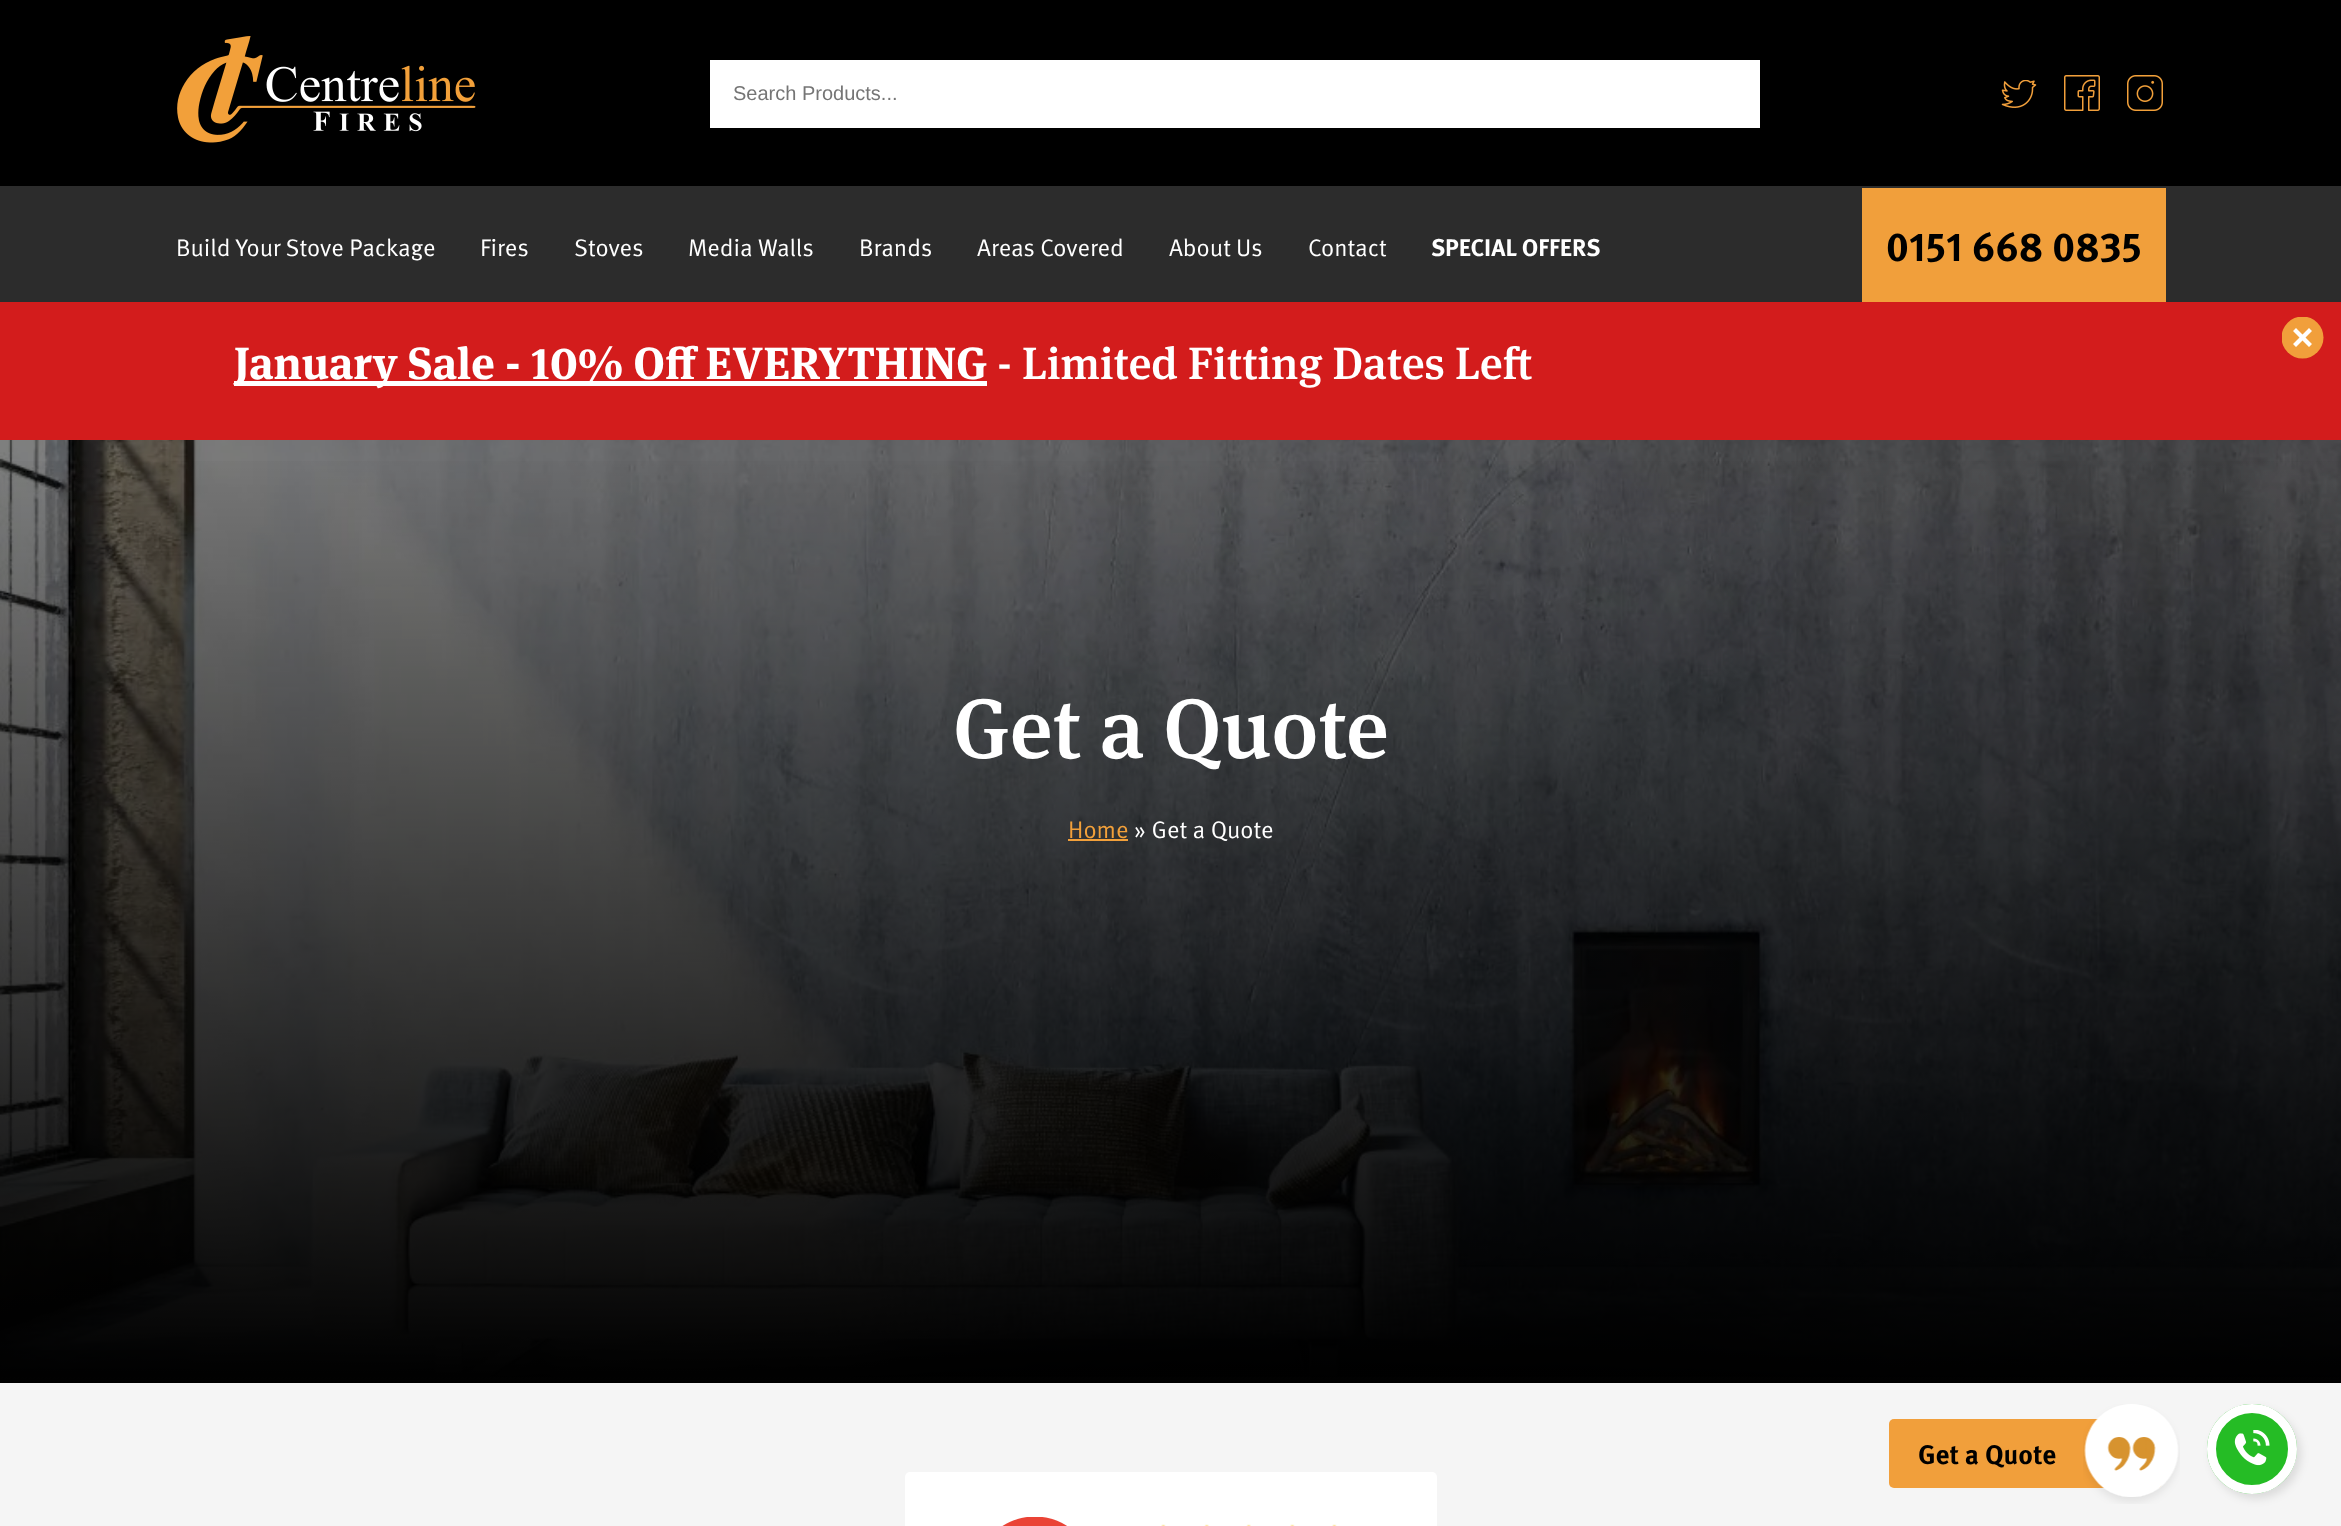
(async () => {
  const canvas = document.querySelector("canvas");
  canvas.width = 2341;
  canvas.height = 1526;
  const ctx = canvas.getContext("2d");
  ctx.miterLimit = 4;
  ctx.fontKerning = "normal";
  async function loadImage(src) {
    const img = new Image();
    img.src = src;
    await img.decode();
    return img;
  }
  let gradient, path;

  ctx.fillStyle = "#f5f5f5";
  ctx.fillRect(0, 0, 2341, 1526);
  ctx.fillStyle = "#000000";
  ctx.fillRect(0, 0, 2341, 186);
  ctx.drawImage(await loadImage("img/1.png"), 177, 36, 299, 107);
  ctx.fillStyle = "#ffffff";
  ctx.fillRect(710, 60, 1050, 68);
  ctx.drawImage(await loadImage("img/2.png"), 2001, 80, 36, 28);
  ctx.drawImage(await loadImage("img/3.png"), 2064, 75, 36, 36);
  ctx.drawImage(await loadImage("img/4.png"), 2127, 75, 36, 36);
  for (const [x, y, w, h, color] of [
    [0, 186, 2341, 116, "#2c2c2c"],
    [1862, 188, 304, 114, "#f19f3b"],
    [0, 302, 2341, 138, "#d31c1c"],
  ]) {
    ctx.fillStyle = color;
    ctx.fillRect(x, y, w, h);
  }
  ctx.save();
  ctx.beginPath();
  ctx.rect(2282, 317, 42, 42);
  ctx.clip();
  ctx.fillStyle = "#f19f3b";
  ctx.beginPath();
  ctx.arc(2302.5, 337.5, 21, 0, Math.PI * 2);
  ctx.fill();
  ctx.restore();
  ctx.fillStyle = "#fefefe";
  path = new Path2D("M2309 347L2312 344L2305.5 337.5L2312 331L2309 328L2302.5 334.5L2296 328L2293 331L2299.5 337.5L2293 344L2296 347L2302.5 340.5Z");
  ctx.fill(path, "evenodd");
  ctx.fillStyle = "#ffffff";
  ctx.fillRect(234, 381, 753, 5);
  ctx.drawImage(await loadImage("img/5.png"), 0, 440, 2341, 937);
  gradient = ctx.createLinearGradient(1171, 441, 1171, 1383);
  gradient.addColorStop(0, "rgba(0, 0, 0, 0)");
  gradient.addColorStop(1, "#000000");
  ctx.fillStyle = gradient;
  ctx.fillRect(0, 461, 2341, 922);
  ctx.fillStyle = "#f2a03a";
  ctx.fillRect(1068, 839, 60, 2);
  ctx.fillStyle = "#ffffff";
  ctx.beginPath();
  ctx.roundRect(905, 1472, 532, 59, 5);
  ctx.fill();
  ctx.drawImage(await loadImage("img/6.png"), 1002, 1517, 65, 9);
  ctx.drawImage(await loadImage("img/7.png"), 1161, 1524, 5, 2);
  ctx.drawImage(await loadImage("img/8.png"), 1204, 1524, 5, 2);
  ctx.drawImage(await loadImage("img/8.png"), 1246, 1524, 5, 2);
  ctx.drawImage(await loadImage("img/7.png"), 1290, 1524, 5, 2);
  ctx.drawImage(await loadImage("img/7.png"), 1332, 1524, 5, 2);
  ctx.fillStyle = "#f19f3b";
  ctx.beginPath();
  ctx.roundRect(1889, 1419, 273, 69, 5);
  ctx.fill();
  ctx.drawImage(await loadImage("img/9.png"), 2083, 1404, 97, 100);
  ctx.fillStyle = "rgba(0, 0, 0, 0.1)";
  ctx.filter = "blur(4px)";
  ctx.beginPath();
  ctx.roundRect(2211, 1409, 90, 90, 45);
  ctx.fill();
  ctx.filter = "none";
  ctx.fillStyle = "#25bc25";
  ctx.beginPath();
  ctx.arc(2252, 1449, 45, 0, Math.PI * 2);
  ctx.fill();
  ctx.drawImage(await loadImage("img/10.png"), 2234, 1430, 36, 36);
  ctx.beginPath();
  ctx.arc(2252, 1449, 40.5, 0, Math.PI * 2);
  ctx.strokeStyle = "#ffffff";
  ctx.lineWidth = 9;
  ctx.stroke();
  ctx.font = "20px Liberation Sans";
  ctx.fillStyle = "#757575";
  ctx.fillText("Search Products...", 733, 100);
  ctx.font = "24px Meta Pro";
  ctx.fillStyle = "#ffffff";
  for (const [text, x, y] of [
    ["Build Your Stove Package", 176, 256],
    ["Fires", 480, 256],
    ["Stoves", 574, 256],
    ["Media Walls", 688, 256],
    ["Brands", 859, 256],
    ["Areas Covered", 977, 256],
    ["About Us", 1169, 256],
    ["Contact", 1308, 256],
  ]) {
    ctx.fillText(text, x, y);
  }
  ctx.font = "bold 24px Meta Pro";
  ctx.fillText("SPECIAL OFFERS", 1431, 256);
  ctx.font = "bold 40.5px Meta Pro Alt";
  ctx.fillStyle = "#000000";
  ctx.fillText("0151 668 0835", 1886, 261);
  ctx.font = "bold 45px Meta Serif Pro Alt";
  ctx.fillStyle = "#ffffff";
  ctx.fillText("January Sale - 10% Off EVERYTHING", 234, 379);
  ctx.font = "500 45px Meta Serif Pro";
  ctx.fillText("- Limited Fitting Dates Left", 997, 379);
  ctx.font = "500 84px Meta Serif Pro";
  ctx.fillText("Get a Quote", 953, 758);
  ctx.font = "24px Meta Pro";
  ctx.fillStyle = "#f2a03a";
  ctx.fillText("Home", 1068, 838);
  ctx.fillStyle = "#ffffff";
  ctx.fillText("» Get a Quote", 1134, 838);
  ctx.font = "bold 27px Meta Pro";
  ctx.fillStyle = "#000000";
  ctx.fillText("Get a Quote", 1918, 1464);
})();
